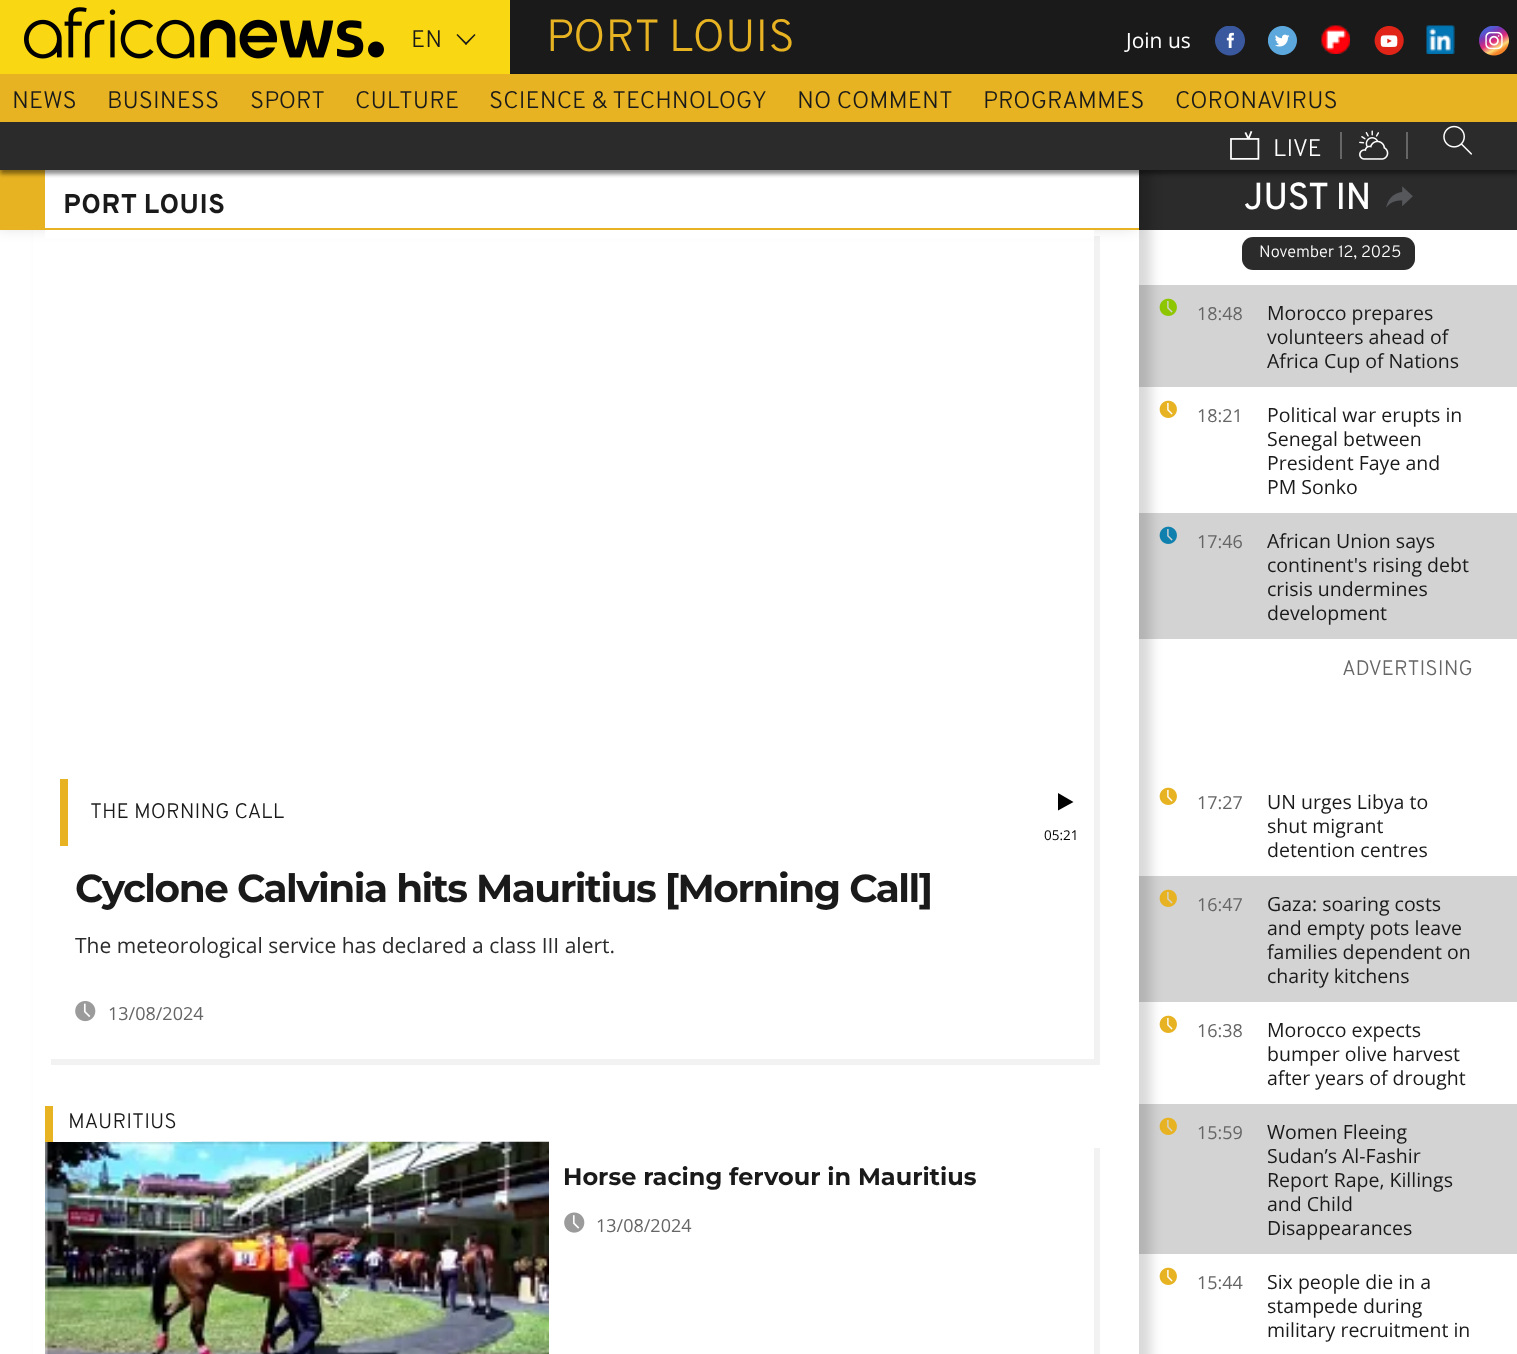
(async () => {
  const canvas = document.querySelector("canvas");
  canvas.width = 1517;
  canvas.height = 1354;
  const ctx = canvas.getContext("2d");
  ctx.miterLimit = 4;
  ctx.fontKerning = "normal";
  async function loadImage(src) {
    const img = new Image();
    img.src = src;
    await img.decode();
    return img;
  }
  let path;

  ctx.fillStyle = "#ffffff";
  ctx.fillRect(0, 0, 1517, 1354);
  for (const [x, y, w, h, color] of [
    [510, 0, 1007, 74, "#1a1a1a"],
    [1139, 170, 378, 60, "#2b2b2b"],
    [1139, 285, 378, 102, "#d3d3d3"],
  ]) {
    ctx.fillStyle = color;
    ctx.fillRect(x, y, w, h);
  }
  ctx.drawImage(await loadImage("img/15.png"), 1159, 298, 18, 18);
  ctx.drawImage(await loadImage("img/16.png"), 1159, 400, 18, 18);
  ctx.fillRect(1139, 513, 378, 126);
  ctx.drawImage(await loadImage("img/17.png"), 1159, 526, 18, 18);
  ctx.drawImage(await loadImage("img/16.png"), 1159, 787, 18, 18);
  ctx.fillRect(1139, 876, 378, 126);
  ctx.drawImage(await loadImage("img/18.png"), 1159, 889, 18, 18);
  ctx.drawImage(await loadImage("img/16.png"), 1159, 1015, 18, 18);
  ctx.fillRect(1139, 1104, 378, 150);
  ctx.drawImage(await loadImage("img/18.png"), 1159, 1117, 18, 18);
  ctx.drawImage(await loadImage("img/16.png"), 1159, 1267, 18, 18);
  ctx.fillStyle = "rgba(0, 0, 0, 0.15)";
  ctx.filter = "blur(6px)";
  ctx.beginPath();
  ctx.rect(42, 167, 1109, 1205);
  ctx.fill();
  ctx.filter = "none";
  ctx.fillStyle = "#ffffff";
  ctx.fillRect(33, 230, 1106, 1124);
  ctx.fillStyle = "rgba(0, 0, 0, 0.15)";
  ctx.filter = "blur(7.5px)";
  ctx.beginPath();
  ctx.rect(-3, 167, 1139, 60);
  ctx.fill();
  ctx.filter = "none";
  ctx.fillStyle = "#ffffff";
  ctx.fillRect(45, 170, 1094, 58);
  ctx.fillStyle = "#e7b322";
  ctx.fillRect(0, 170, 45, 58);
  ctx.fillStyle = "rgba(0, 0, 0, 0.45)";
  ctx.filter = "blur(2px)";
  ctx.beginPath();
  ctx.rect(0, 78, 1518, 96);
  ctx.fill();
  ctx.filter = "none";
  ctx.fillStyle = "#f9d713";
  ctx.fillRect(0, 0, 510, 74);
  ctx.drawImage(await loadImage("img/1.png"), 24, 7, 360, 52);
  ctx.fillStyle = "#1a1a1a";
  path = new Path2D("M465 43.5L474.5 34L475.5 35L466 45Z");
  ctx.fill(path);
  path = new Path2D("M456.5 35L457.5 34L467 43.5L466 45Z");
  ctx.fill(path);
  ctx.drawImage(await loadImage("img/2.png"), 1215, 26, 30, 30);
  ctx.drawImage(await loadImage("img/3.png"), 1268, 26, 29, 30);
  ctx.drawImage(await loadImage("img/4.png"), 1321, 25, 29, 29);
  ctx.drawImage(await loadImage("img/5.png"), 1374, 26, 30, 30);
  ctx.drawImage(await loadImage("img/6.png"), 1426, 25, 29, 29);
  ctx.drawImage(await loadImage("img/7.png"), 1479, 26, 30, 30);
  ctx.fillStyle = "#e7b322";
  ctx.fillRect(0, 74, 1517, 48);
  ctx.fillStyle = "#2b2b2b";
  ctx.fillRect(0, 122, 1517, 48);
  ctx.drawImage(await loadImage("img/8.png"), 1230, 131, 30, 29);
  ctx.fillStyle = "#666666";
  ctx.fillRect(1340, 132, 2, 27);
  ctx.drawImage(await loadImage("img/9.png"), 1359, 130, 30, 30);
  ctx.fillRect(1406, 132, 2, 27);
  ctx.drawImage(await loadImage("img/10.png"), 1443, 125, 29, 30);
  ctx.fillStyle = "#e7b322";
  ctx.fillRect(0, 228, 1139, 2);
  ctx.fillStyle = "rgba(0, 0, 0, 0.05)";
  path = new Path2D("M51 1059V1065H1100V236H1094V1059Z");
  ctx.fill(path);
  ctx.fillStyle = "#ffffff";
  ctx.fillRect(45, 230, 1049, 8);
  ctx.fillStyle = "#e7b322";
  ctx.fillRect(60, 779, 8, 67);
  ctx.drawImage(await loadImage("img/11.png"), 75, 1001, 21, 21);
  ctx.fillStyle = "#000000";
  path = new Path2D("M1073.5 802L1058 810.5V793Z");
  ctx.fill(path);
  ctx.fillStyle = "#f2f2f2";
  path = new Path2D("M51 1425V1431H1100V1148H1094V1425Z");
  ctx.fill(path);
  ctx.drawImage(await loadImage("img/13.png"), 45, 1141, 504, 213);
  ctx.fillStyle = "#ffffff";
  ctx.fillRect(53, 1141, 139, 1);
  ctx.fillStyle = "#e7b322";
  ctx.fillRect(45, 1106, 8, 36);
  ctx.drawImage(await loadImage("img/12.png"), 564, 1212, 21, 21);
  ctx.drawImage(await loadImage("img/14.png"), 1386, 186, 27, 22);
  ctx.fillStyle = "#2b2b2b";
  ctx.beginPath();
  ctx.roundRect(1242, 237, 173, 33, 11);
  ctx.fill();
  ctx.font = "300 24px Overpass";
  ctx.fillStyle = "#1a1a1a";
  ctx.fillText("EN", 411, 47);
  ctx.font = "300 45px Overpass";
  ctx.fillStyle = "#e7b322";
  ctx.fillText("PORT LOUIS", 546, 51);
  ctx.font = "21px Open Sans";
  ctx.fillStyle = "#ffffff";
  ctx.fillText("Join us", 1126, 48);
  ctx.font = "300 24px Overpass";
  ctx.fillStyle = "#1a1a1a";
  for (const [text, x, y] of [
    ["NEWS", 12, 108],
    ["BUSINESS", 107, 108],
    ["SPORT", 250, 108],
    ["CULTURE", 355, 108],
    ["SCIENCE & TECHNOLOGY", 489, 108],
    ["NO COMMENT", 797, 108],
    ["PROGRAMMES", 983, 108],
    ["CORONAVIRUS", 1175, 108],
  ]) {
    ctx.fillText(text, x, y);
  }
  ctx.fillStyle = "#ffffff";
  ctx.fillText("LIVE", 1273, 156);
  ctx.font = "bold 27px 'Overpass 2'";
  ctx.fillStyle = "#1a1a1a";
  ctx.fillText("PORT LOUIS", 63, 213);
  ctx.font = "300 21px Overpass";
  ctx.fillText("THE MORNING CALL", 90, 818);
  ctx.letterSpacing = "-1.5px";
  ctx.font = "100 39px Montserrat";
  ctx.fillText("Cyclone Calvinia hits Mauritius [Morning Call]", 75, 902);
  ctx.letterSpacing = "0px";
  ctx.font = "21px Open Sans";
  ctx.fillStyle = "#2b2b2b";
  ctx.fillText("The meteorological service has declared a class III alert.", 75, 953);
  ctx.font = "18px Open Sans";
  ctx.fillStyle = "#666666";
  ctx.fillText("13/08/2024", 108, 1020);
  ctx.font = "13.5px Open Sans";
  ctx.fillStyle = "#000000";
  ctx.fillText("05:21", 1044, 840);
  ctx.font = "300 21px Overpass";
  ctx.fillStyle = "#1a1a1a";
  ctx.fillText("MAURITIUS", 68, 1128);
  ctx.font = "100 24px Montserrat";
  ctx.fillText("Horse racing fervour in Mauritius", 563, 1185);
  ctx.font = "18px Open Sans";
  ctx.fillStyle = "#666666";
  ctx.fillText("13/08/2024", 596, 1232);
  ctx.font = "bold 36px Overpass";
  ctx.fillStyle = "#ffffff";
  ctx.fillText("JUST IN", 1244, 209);
  ctx.font = "300 16.5px Overpass";
  ctx.fillText("November 12, 2025", 1259, 257);
  ctx.font = "18px Open Sans";
  ctx.fillStyle = "#666666";
  ctx.fillText("18:48", 1197, 320);
  ctx.font = "19.5px Open Sans";
  ctx.fillStyle = "#1a1a1a";
  for (const [text, x, y] of [
    ["Morocco prepares", 1267, 320],
    ["volunteers ahead of", 1267, 344],
    ["Africa Cup of Nations", 1267, 368],
  ]) {
    ctx.fillText(text, x, y);
  }
  ctx.font = "18px Open Sans";
  ctx.fillStyle = "#666666";
  ctx.fillText("18:21", 1197, 422);
  ctx.font = "19.5px Open Sans";
  ctx.fillStyle = "#1a1a1a";
  for (const [text, x, y] of [
    ["Political war erupts in", 1267, 422],
    ["Senegal between", 1267, 446],
    ["President Faye and", 1267, 470],
    ["PM Sonko", 1267, 494],
  ]) {
    ctx.fillText(text, x, y);
  }
  ctx.font = "18px Open Sans";
  ctx.fillStyle = "#666666";
  ctx.fillText("17:46", 1197, 548);
  ctx.font = "19.5px Open Sans";
  ctx.fillStyle = "#1a1a1a";
  for (const [text, x, y] of [
    ["African Union says", 1267, 548],
    ["continent's rising debt", 1267, 572],
    ["crisis undermines", 1267, 596],
    ["development", 1267, 620],
  ]) {
    ctx.fillText(text, x, y);
  }
  ctx.font = "300 21px Overpass";
  ctx.fillStyle = "#666666";
  ctx.fillText("ADVERTISING", 1342, 675);
  ctx.font = "18px Open Sans";
  ctx.fillText("17:27", 1197, 809);
  ctx.font = "19.5px Open Sans";
  ctx.fillStyle = "#1a1a1a";
  for (const [text, x, y] of [
    ["UN urges Libya to", 1267, 809],
    ["shut migrant", 1267, 833],
    ["detention centres", 1267, 857],
  ]) {
    ctx.fillText(text, x, y);
  }
  ctx.font = "18px Open Sans";
  ctx.fillStyle = "#666666";
  ctx.fillText("16:47", 1197, 911);
  ctx.font = "19.5px Open Sans";
  ctx.fillStyle = "#1a1a1a";
  for (const [text, x, y] of [
    ["Gaza: soaring costs", 1267, 911],
    ["and empty pots leave", 1267, 935],
    ["families dependent on", 1267, 959],
    ["charity kitchens", 1267, 983],
  ]) {
    ctx.fillText(text, x, y);
  }
  ctx.font = "18px Open Sans";
  ctx.fillStyle = "#666666";
  ctx.fillText("16:38", 1197, 1037);
  ctx.font = "19.5px Open Sans";
  ctx.fillStyle = "#1a1a1a";
  for (const [text, x, y] of [
    ["Morocco expects", 1267, 1037],
    ["bumper olive harvest", 1267, 1061],
    ["after years of drought", 1267, 1085],
  ]) {
    ctx.fillText(text, x, y);
  }
  ctx.font = "18px Open Sans";
  ctx.fillStyle = "#666666";
  ctx.fillText("15:59", 1197, 1139);
  ctx.font = "19.5px Open Sans";
  ctx.fillStyle = "#1a1a1a";
  for (const [text, x, y] of [
    ["Women Fleeing", 1267, 1139],
    ["Sudan’s Al-Fashir", 1267, 1163],
    ["Report Rape, Killings", 1267, 1187],
    ["and Child", 1267, 1211],
    ["Disappearances", 1267, 1235],
  ]) {
    ctx.fillText(text, x, y);
  }
  ctx.font = "18px Open Sans";
  ctx.fillStyle = "#666666";
  ctx.fillText("15:44", 1197, 1289);
  ctx.font = "19.5px Open Sans";
  ctx.fillStyle = "#1a1a1a";
  for (const [text, x, y] of [
    ["Six people die in a", 1267, 1289],
    ["stampede during", 1267, 1313],
    ["military recruitment in", 1267, 1337],
  ]) {
    ctx.fillText(text, x, y);
  }
})();
